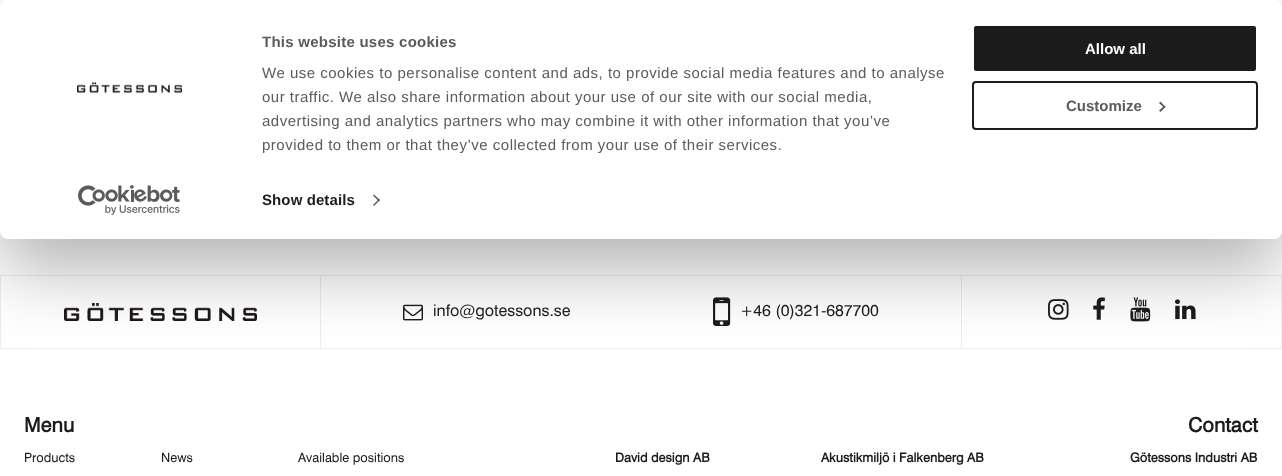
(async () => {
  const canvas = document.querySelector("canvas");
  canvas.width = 1282;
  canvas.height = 476;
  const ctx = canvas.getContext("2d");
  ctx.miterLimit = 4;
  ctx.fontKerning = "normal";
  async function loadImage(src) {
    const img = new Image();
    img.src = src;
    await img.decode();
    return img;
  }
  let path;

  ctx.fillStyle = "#ffffff";
  ctx.fillRect(0, 0, 1282, 476);
  ctx.strokeStyle = "#ededed";
  ctx.strokeRect(0.5, 275.5, 1281, 73);
  ctx.fillStyle = "#ededed";
  ctx.fillRect(320, 276, 1, 72);
  ctx.drawImage(await loadImage("img/3.png"), 64, 303, 193, 18);
  ctx.drawImage(await loadImage("img/4.png"), 403, 304, 20, 17);
  ctx.drawImage(await loadImage("img/5.png"), 713, 297, 18, 29);
  ctx.fillRect(961, 276, 1, 72);
  ctx.drawImage(await loadImage("img/6.png"), 1048, 299, 21, 21);
  ctx.drawImage(await loadImage("img/7.png"), 1093, 297, 12, 23);
  ctx.drawImage(await loadImage("img/8.png"), 1130, 297, 21, 25);
  ctx.drawImage(await loadImage("img/9.png"), 1175, 299, 21, 21);
  ctx.fillStyle = "rgba(0, 0, 0, 0.3)";
  ctx.filter = "blur(35px)";
  ctx.beginPath();
  ctx.roundRect(0, 30, 1282, 239, 8);
  ctx.fill();
  ctx.filter = "none";
  ctx.fillStyle = "#ffffff";
  ctx.beginPath();
  ctx.roundRect(0, 0, 1282, 239, 8);
  ctx.fill();
  ctx.drawImage(await loadImage("img/1.png"), 77, 82, 105, 12);
  ctx.drawImage(await loadImage("img/2.png"), 78, 185, 102, 30);
  ctx.fillStyle = "#5b5b5b";
  path = new Path2D("M374 194.5L380 200L379 201.5L373 195.5Z");
  ctx.fill(path);
  path = new Path2D("M379 199L380 200L374 206L373 205Z");
  ctx.fill(path);
  ctx.fillStyle = "#1c1c1c";
  ctx.beginPath();
  ctx.roundRect(973, 25, 284, 47, 3);
  ctx.fill();
  ctx.strokeStyle = "#ffffff";
  ctx.lineWidth = 2;
  ctx.stroke();
  ctx.beginPath();
  ctx.roundRect(973, 82, 284, 47, 3);
  ctx.strokeStyle = "#1c1c1c";
  ctx.stroke();
  ctx.fillStyle = "#5b5b5b";
  path = new Path2D("M1160.5 101.5L1165.5 107L1164.5 108L1159 103Z");
  ctx.fill(path);
  path = new Path2D("M1164.5 105.5L1165.5 107L1160.5 112L1159 110.5Z");
  ctx.fill(path);
  ctx.letterSpacing = "0.25px";
  ctx.font = "bold 15px Liberation Sans";
  ctx.fillText("This website uses cookies", 262, 47);
  ctx.letterSpacing = "0.5px";
  ctx.font = "15px Liberation Sans";
  for (const [text, x, y] of [
    ["We use cookies to personalise content and ads, to provide social media features and to analyse", 262, 78],
    ["our traffic. We also share information about your use of our site with our social media,", 262, 102],
    ["advertising and analytics partners who may combine it with other information that you’ve", 262, 126],
    ["provided to them or that they’ve collected from your use of their services.", 262, 150],
  ]) {
    ctx.fillText(text, x, y);
  }
  ctx.letterSpacing = "0.1px";
  ctx.font = "bold 15px Liberation Sans";
  ctx.fillStyle = "#1c1c1c";
  ctx.fillText("Show details", 262, 205);
  ctx.letterSpacing = "0px";
  ctx.fillStyle = "#ffffff";
  ctx.fillText("Allow all", 1085, 54);
  ctx.fillStyle = "#5b5b5b";
  ctx.fillText("Customize", 1066, 111);
  ctx.font = "16px 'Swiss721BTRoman'";
  ctx.fillStyle = "#1c1c1c";
  ctx.fillText("info@gotessons.se", 433, 316);
  ctx.fillText("+46 (0)321-687700", 740, 316);
  ctx.font = "bold 20px 'Swiss721BTRoman'";
  ctx.fillText("Menu", 24, 432);
  ctx.font = "12.75px 'Swiss721BTRoman'";
  for (const [text, x, y] of [
    ["Products", 24, 462],
    ["News", 161, 462],
    ["Available positions", 298, 462],
  ]) {
    ctx.fillText(text, x, y);
  }
  ctx.font = "bold 12.75px 'Swiss721BTRoman'";
  ctx.fillText("David design AB", 615, 462);
  ctx.fillText("Akustikmiljö i Falkenberg AB", 821, 462);
  ctx.font = "bold 20px 'Swiss721BTRoman'";
  ctx.fillText("Contact", 1188, 432);
  ctx.font = "bold 12.75px 'Swiss721BTRoman'";
  ctx.fillText("Götessons Industri AB", 1130, 462);
})();
